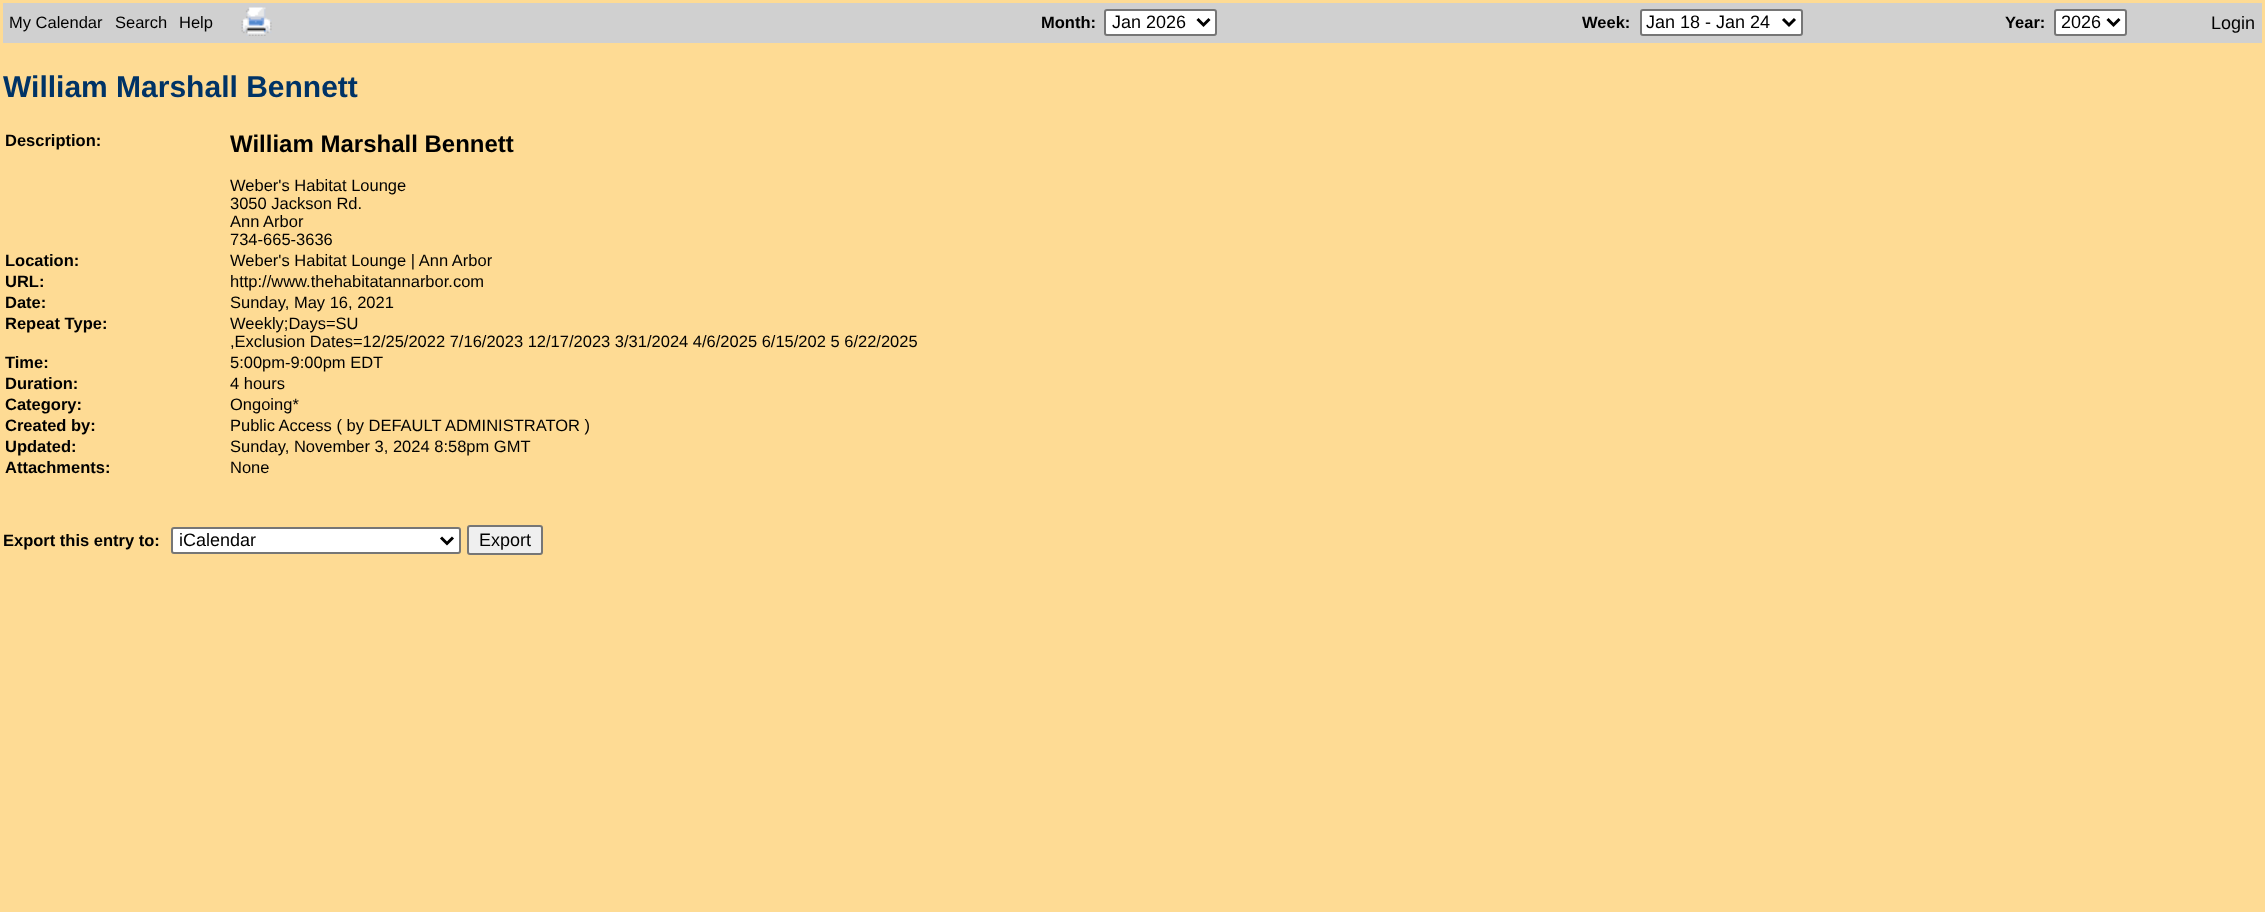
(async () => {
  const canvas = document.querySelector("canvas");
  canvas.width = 2265;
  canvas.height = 912;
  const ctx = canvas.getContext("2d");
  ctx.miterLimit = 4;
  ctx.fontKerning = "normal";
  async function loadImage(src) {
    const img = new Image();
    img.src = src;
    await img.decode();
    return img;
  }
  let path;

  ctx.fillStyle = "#fedb94";
  ctx.fillRect(0, 0, 2265, 912);
  ctx.fillStyle = "#d0d0d0";
  ctx.fillRect(3, 3, 747, 40);
  ctx.drawImage(await loadImage("img/1.png"), 241, 6, 31, 30);
  ctx.fillRect(750, 3, 467, 40);
  ctx.fillStyle = "#ffffff";
  ctx.beginPath();
  ctx.roundRect(1105, 10, 111, 25, 2);
  ctx.fill();
  ctx.strokeStyle = "#767676";
  ctx.lineWidth = 2;
  ctx.stroke();
  path = new Path2D("M1197.5 19L1203.5 25L1209.5 19");
  ctx.strokeStyle = "#000000";
  ctx.lineWidth = 3;
  ctx.stroke(path);
  ctx.fillStyle = "#d0d0d0";
  ctx.fillRect(1217, 3, 586, 40);
  ctx.fillStyle = "#ffffff";
  ctx.beginPath();
  ctx.roundRect(1641, 10, 161, 25, 2);
  ctx.fill();
  ctx.strokeStyle = "#767676";
  ctx.lineWidth = 2;
  ctx.stroke();
  path = new Path2D("M1783 19L1789 25L1795 19");
  ctx.strokeStyle = "#000000";
  ctx.lineWidth = 3;
  ctx.stroke(path);
  ctx.fillStyle = "#d0d0d0";
  ctx.fillRect(1803, 3, 324, 40);
  ctx.fillStyle = "#ffffff";
  ctx.beginPath();
  ctx.roundRect(2055, 10, 71, 25, 2);
  ctx.fill();
  ctx.strokeStyle = "#767676";
  ctx.lineWidth = 2;
  ctx.stroke();
  path = new Path2D("M2107.5 19L2113.5 25L2119.5 19");
  ctx.strokeStyle = "#000000";
  ctx.lineWidth = 3;
  ctx.stroke(path);
  ctx.fillStyle = "#d0d0d0";
  ctx.fillRect(2127, 3, 135, 40);
  ctx.fillStyle = "#ffffff";
  ctx.beginPath();
  ctx.roundRect(172, 528, 288, 25, 2);
  ctx.fill();
  ctx.strokeStyle = "#767676";
  ctx.lineWidth = 2;
  ctx.stroke();
  path = new Path2D("M441 537.5L447 543.5L453 537.5");
  ctx.strokeStyle = "#000000";
  ctx.lineWidth = 3;
  ctx.stroke(path);
  ctx.fillStyle = "#efefef";
  ctx.beginPath();
  ctx.roundRect(468, 526, 74, 28, 2);
  ctx.fill();
  ctx.strokeStyle = "#767676";
  ctx.lineWidth = 2;
  ctx.stroke();
  ctx.font = "16.5px Liberation Sans";
  ctx.fillStyle = "#000000";
  for (const [text, x, y] of [
    ["My Calendar", 9, 28],
    ["Search", 115, 28],
    ["Help", 179, 28],
  ]) {
    ctx.fillText(text, x, y);
  }
  ctx.font = "bold 16.5px Liberation Sans";
  ctx.fillText("Month:", 1041, 28);
  ctx.font = "18px Liberation Sans";
  ctx.fillText("Jan 2026", 1112, 28);
  ctx.font = "bold 16.5px Liberation Sans";
  ctx.fillText("Week:", 1582, 28);
  ctx.font = "18px Liberation Sans";
  ctx.fillText("Jan 18 - Jan 24", 1646, 28);
  ctx.font = "bold 16.5px Liberation Sans";
  ctx.fillText("Year:", 2005, 28);
  ctx.font = "18px Liberation Sans";
  ctx.fillText("2026", 2061, 28);
  ctx.fillText("Login", 2211, 29);
  ctx.font = "bold 30px Liberation Sans";
  ctx.fillStyle = "#003366";
  ctx.fillText("William Marshall Bennett", 3, 97);
  ctx.font = "bold 16.5px Liberation Sans";
  ctx.fillStyle = "#000000";
  ctx.fillText("Description:", 5, 146);
  ctx.font = "bold 24px Liberation Sans";
  ctx.fillText("William Marshall Bennett", 230, 152);
  ctx.font = "16.5px Liberation Sans";
  for (const [text, x, y] of [
    ["Weber's Habitat Lounge", 230, 191],
    ["3050 Jackson Rd.", 230, 209],
    ["Ann Arbor", 230, 227],
    ["734-665-3636", 230, 245],
  ]) {
    ctx.fillText(text, x, y);
  }
  ctx.font = "bold 16.5px Liberation Sans";
  ctx.fillText("Location:", 5, 266);
  ctx.font = "16.5px Liberation Sans";
  ctx.fillText("Weber's Habitat Lounge | Ann Arbor", 230, 266);
  ctx.font = "bold 16.5px Liberation Sans";
  ctx.fillText("URL:", 5, 287);
  ctx.font = "16.5px Liberation Sans";
  ctx.fillText("http://www.thehabitatannarbor.com", 230, 287);
  ctx.font = "bold 16.5px Liberation Sans";
  ctx.fillText("Date:", 5, 308);
  ctx.font = "16.5px Liberation Sans";
  ctx.fillText("Sunday, May 16, 2021", 230, 308);
  ctx.font = "bold 16.5px Liberation Sans";
  ctx.fillText("Repeat Type:", 5, 329);
  ctx.font = "16.5px Liberation Sans";
  ctx.fillText("Weekly;Days=SU", 230, 329);
  ctx.fillText(",Exclusion Dates=12/25/2022 7/16/2023 12/17/2023 3/31/2024 4/6/2025 6/15/202 5 6/22/2025", 230, 347);
  ctx.font = "bold 16.5px Liberation Sans";
  ctx.fillText("Time:", 5, 368);
  ctx.font = "16.5px Liberation Sans";
  ctx.fillText("5:00pm-9:00pm EDT", 230, 368);
  ctx.font = "bold 16.5px Liberation Sans";
  ctx.fillText("Duration:", 5, 389);
  ctx.font = "16.5px Liberation Sans";
  ctx.fillText("4 hours", 230, 389);
  ctx.font = "bold 16.5px Liberation Sans";
  ctx.fillText("Category:", 5, 410);
  ctx.font = "16.5px Liberation Sans";
  ctx.fillText("Ongoing*", 230, 410);
  ctx.font = "bold 16.5px Liberation Sans";
  ctx.fillText("Created by:", 5, 431);
  ctx.font = "16.5px Liberation Sans";
  ctx.fillText("Public Access ( by DEFAULT ADMINISTRATOR )", 230, 431);
  ctx.font = "bold 16.5px Liberation Sans";
  ctx.fillText("Updated:", 5, 452);
  ctx.font = "16.5px Liberation Sans";
  ctx.fillText("Sunday, November 3, 2024 8:58pm GMT", 230, 452);
  ctx.font = "bold 16.5px Liberation Sans";
  ctx.fillText("Attachments:", 5, 473);
  ctx.font = "16.5px Liberation Sans";
  ctx.fillText("None", 230, 473);
  ctx.font = "bold 16.5px Liberation Sans";
  ctx.fillText("Export this entry to:", 3, 546);
  ctx.font = "18px Liberation Sans";
  ctx.fillText("iCalendar", 179, 546);
  ctx.fillText("Export", 479, 546);
})();
